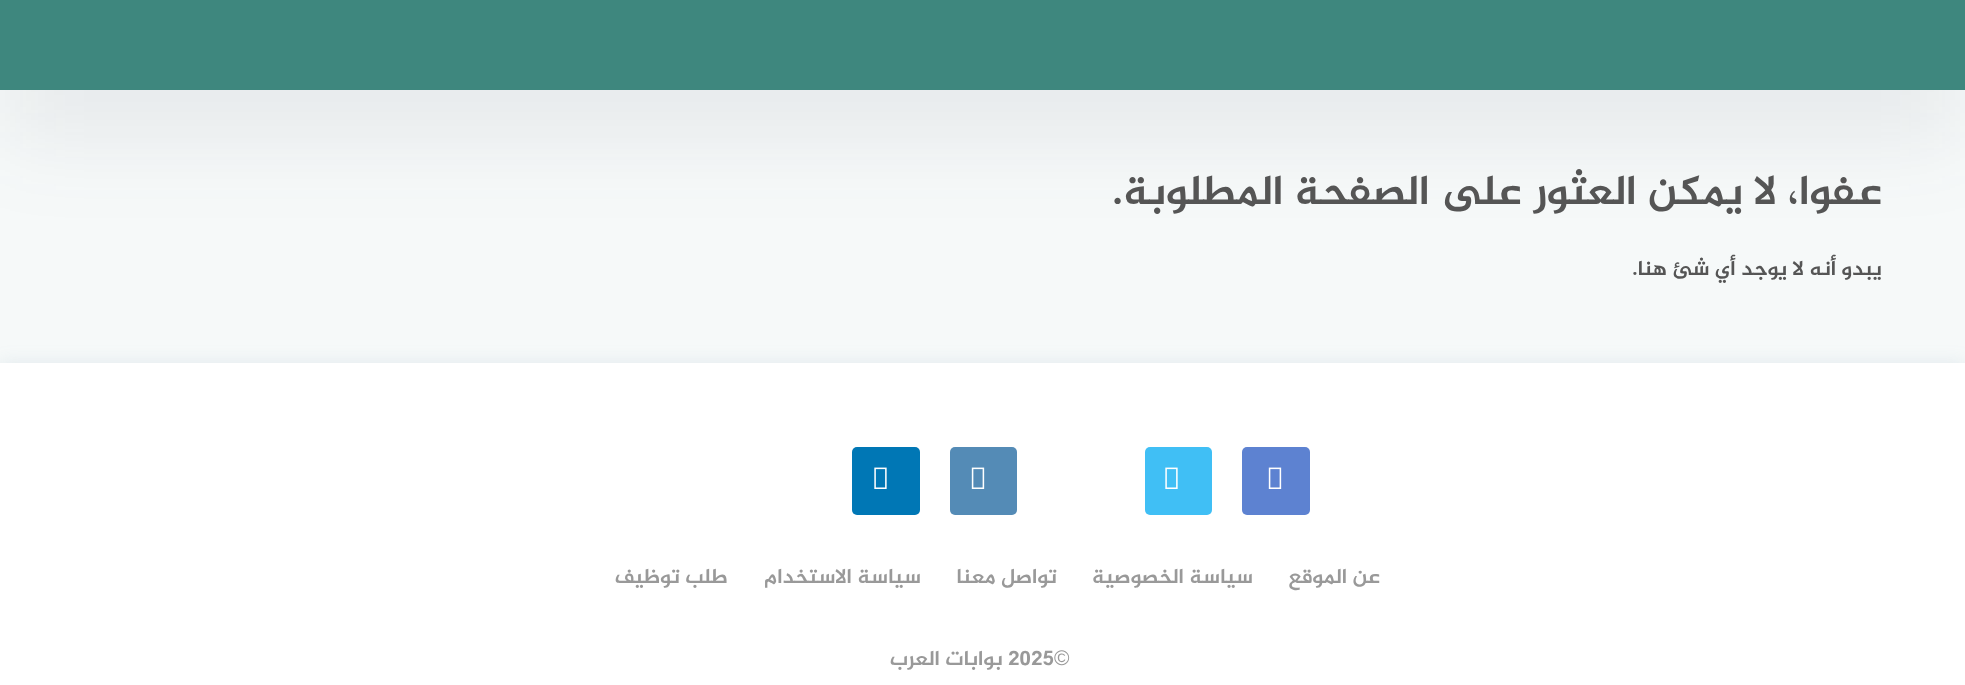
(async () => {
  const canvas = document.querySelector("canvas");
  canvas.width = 1965;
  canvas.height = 685;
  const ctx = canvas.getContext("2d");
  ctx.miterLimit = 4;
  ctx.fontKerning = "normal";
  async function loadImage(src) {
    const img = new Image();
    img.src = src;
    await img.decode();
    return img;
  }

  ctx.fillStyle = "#f6f9f9";
  ctx.fillRect(0, 0, 1965, 685);
  ctx.fillStyle = "rgba(54, 57, 73, 0.09)";
  ctx.filter = "blur(45px)";
  ctx.beginPath();
  ctx.rect(0, 44, 1965, 90);
  ctx.fill();
  ctx.filter = "none";
  ctx.fillStyle = "#3e877e";
  ctx.fillRect(0, 0, 1965, 90);
  ctx.fillStyle = "rgba(110, 143, 171, 0.15)";
  ctx.filter = "blur(9px)";
  ctx.beginPath();
  ctx.rect(0, 363, 1965, 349);
  ctx.fill();
  ctx.filter = "none";
  ctx.fillStyle = "#ffffff";
  ctx.fillRect(0, 363, 1965, 322);
  ctx.fillStyle = "#5d82d1";
  ctx.beginPath();
  ctx.roundRect(1242, 447, 68, 68, 5);
  ctx.fill();
  ctx.drawImage(await loadImage("img/1.png"), 1268, 467, 14, 22);
  ctx.fillStyle = "#40bff5";
  ctx.beginPath();
  ctx.roundRect(1145, 447, 67, 68, 5);
  ctx.fill();
  ctx.drawImage(await loadImage("img/2.png"), 1165, 467, 13, 22);
  ctx.fillStyle = "#548bb6";
  ctx.beginPath();
  ctx.roundRect(950, 447, 67, 68, 5);
  ctx.fill();
  ctx.drawImage(await loadImage("img/3.png"), 971, 467, 14, 22);
  ctx.fillStyle = "#0077b5";
  ctx.beginPath();
  ctx.roundRect(852, 447, 68, 68, 5);
  ctx.fill();
  ctx.drawImage(await loadImage("img/4.png"), 874, 467, 13, 22);
  ctx.direction = "rtl";
  ctx.font = "bold 42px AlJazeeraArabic";
  ctx.fillStyle = "#555555";
  ctx.fillText("عفوا، لا يمكن العثور على الصفحة المطلوبة.", 1882, 204);
  ctx.font = "bold 21px AlJazeeraArabic";
  ctx.fillText("يبدو أنه لا يوجد أي شئ هنا.", 1882, 275);
  ctx.fillStyle = "#999999";
  for (const [text, x, y] of [
    ["عن الموقع", 1380, 583],
    ["سياسة الخصوصية", 1253, 583],
    ["تواصل معنا", 1057, 583],
    ["سياسة الاستخدام", 921, 583],
    ["طلب توظيف", 728, 583],
  ]) {
    ctx.fillText(text, x, y);
  }
  ctx.direction = "ltr";
  ctx.font = "21px Liberation Sans";
  ctx.fillText("©", 1054, 665);
  ctx.font = "bold 21px AlJazeeraArabic";
  ctx.fillText("2025", 1008, 665);
  ctx.direction = "rtl";
  ctx.fillText("بوابات العرب", 1003, 665);
})();
